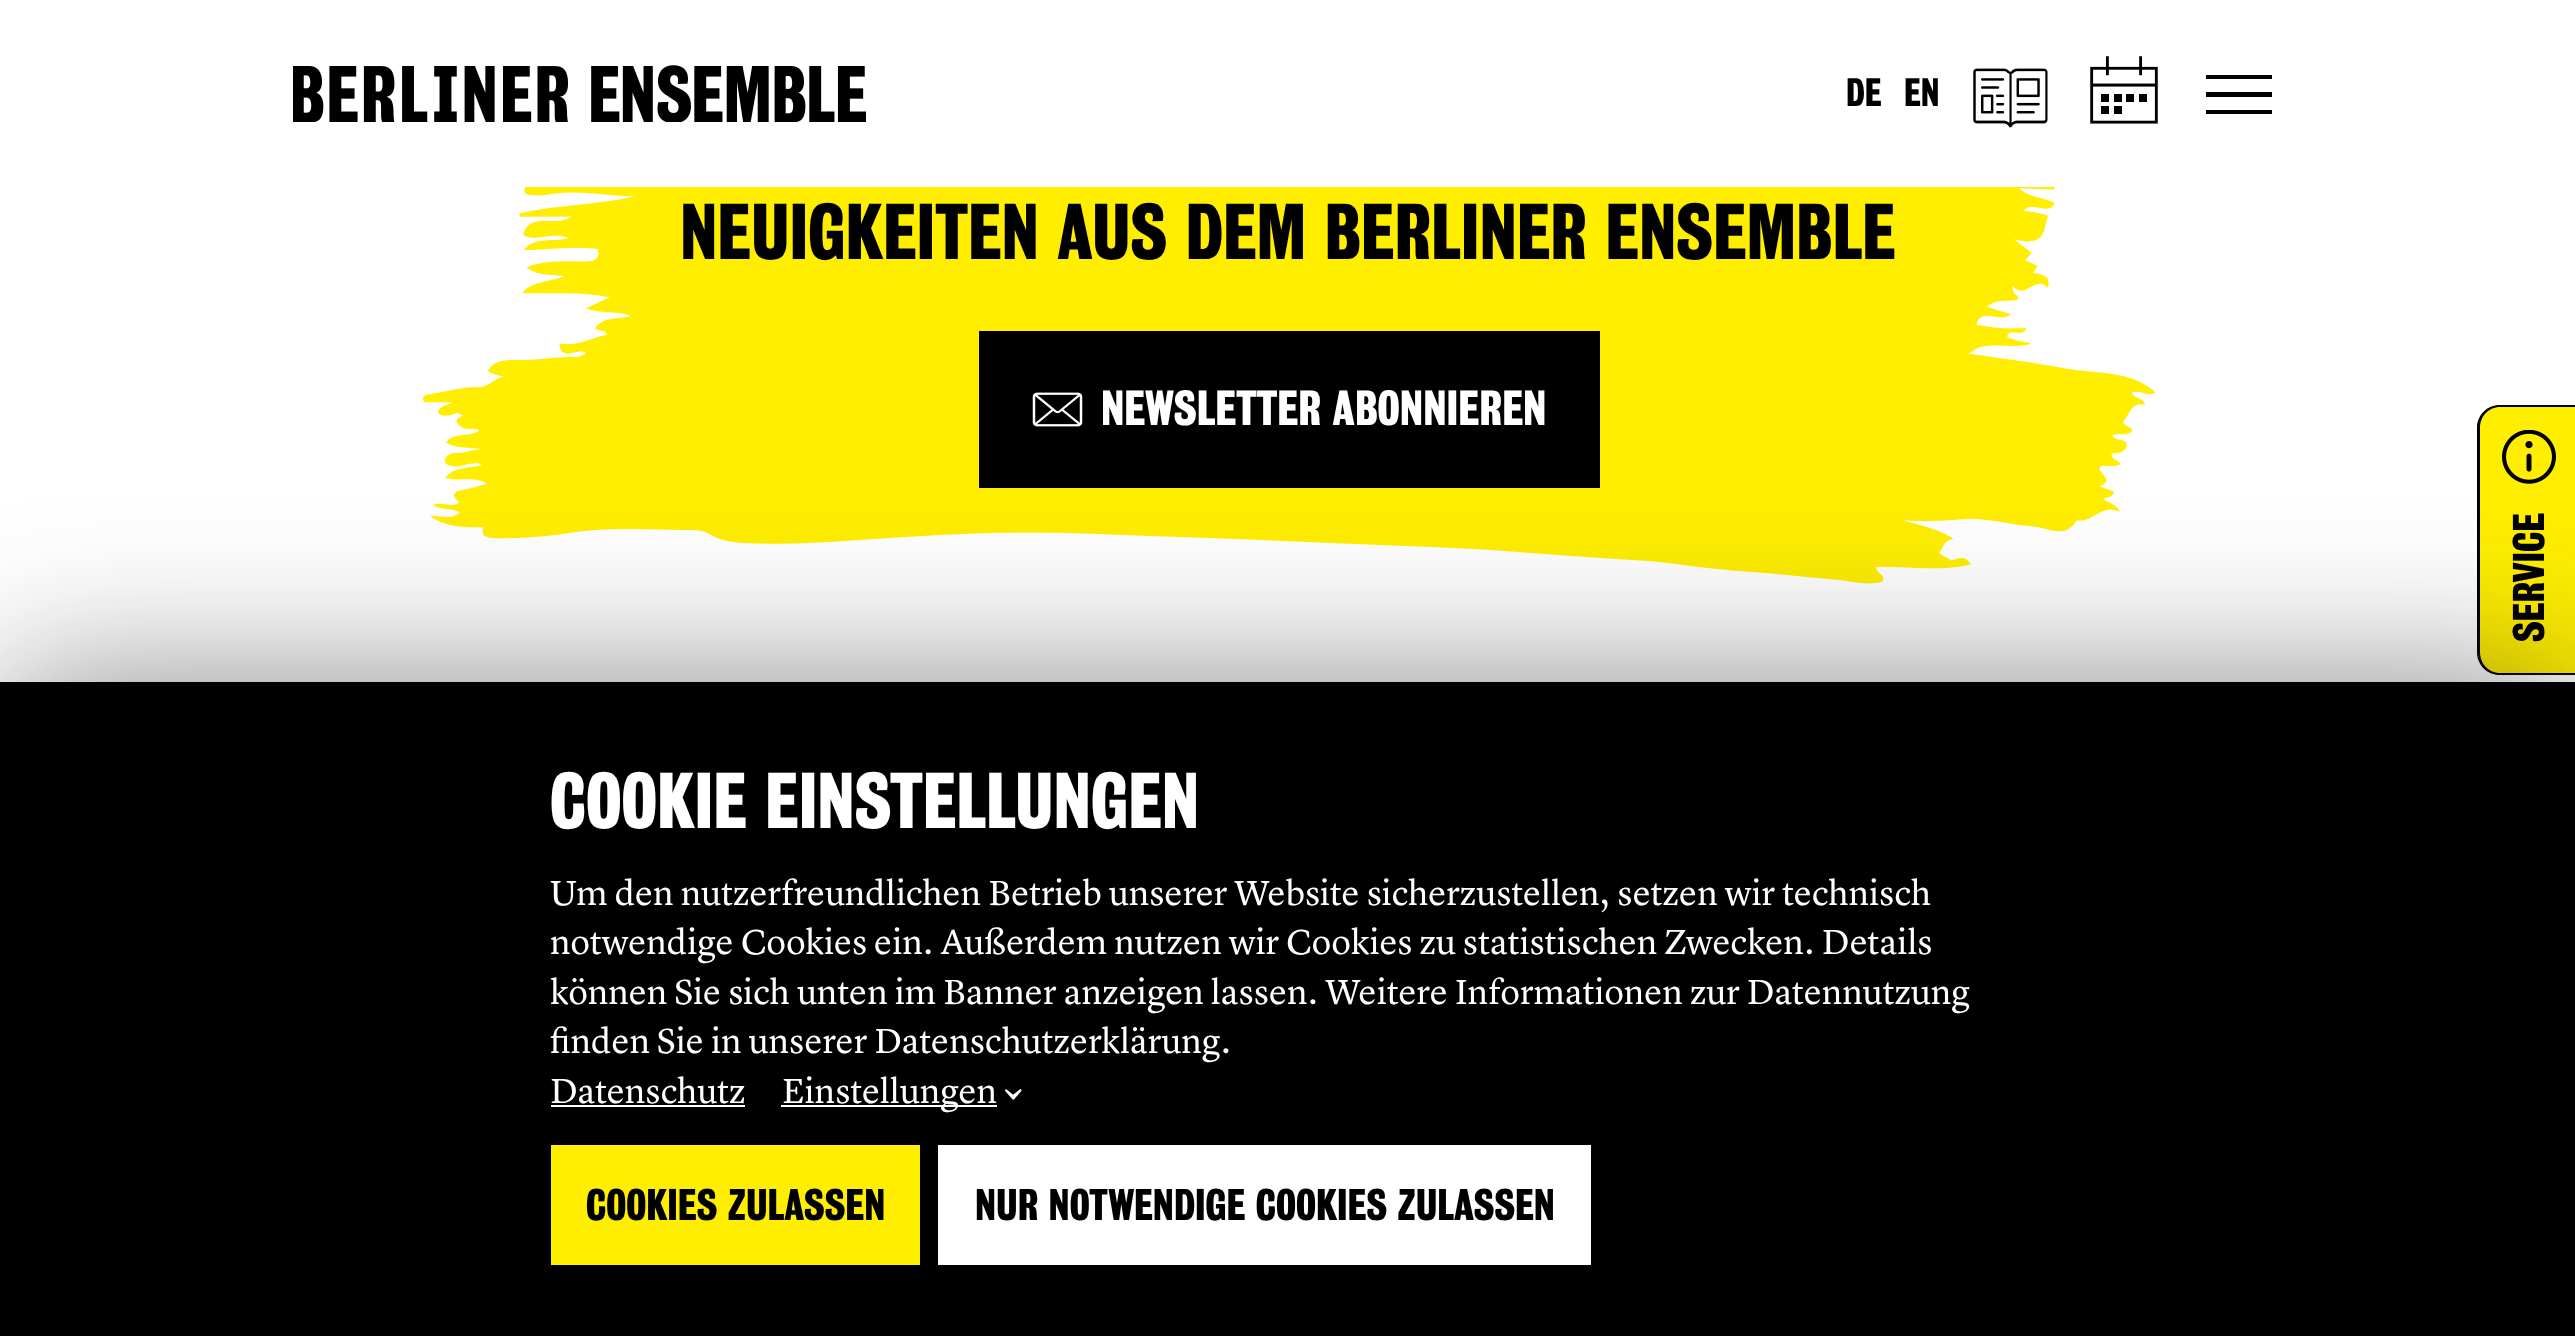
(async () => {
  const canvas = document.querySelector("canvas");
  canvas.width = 2575;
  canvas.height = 1336;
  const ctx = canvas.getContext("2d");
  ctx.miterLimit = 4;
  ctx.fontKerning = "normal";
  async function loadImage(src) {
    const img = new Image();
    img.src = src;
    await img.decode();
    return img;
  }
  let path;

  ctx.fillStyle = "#ffffff";
  ctx.fillRect(0, 0, 2575, 1336);
  ctx.drawImage(await loadImage("img/1.png"), 293, 65, 573, 57);
  ctx.drawImage(await loadImage("img/2.png"), 1973, 68, 75, 60);
  ctx.drawImage(await loadImage("img/3.png"), 2090, 56, 68, 68);
  for (const [x, y, w, h, color] of [
    [2206, 75, 66, 4, "#000000"],
    [2206, 92, 66, 5, "#000000"],
    [2206, 110, 66, 4, "#000000"],
  ]) {
    ctx.fillStyle = color;
    ctx.fillRect(x, y, w, h);
  }
  ctx.drawImage(await loadImage("img/4.png"), 423, 187, 1733, 397);
  ctx.fillRect(979, 331, 621, 157);
  ctx.drawImage(await loadImage("img/5.png"), 1032, 392, 51, 35);
  ctx.fillStyle = "#ffee00";
  path = new Path2D("M2500 405H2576V675H2500C2487.5 675 2477 664.5 2477 652V428C2477 415.5 2487.5 405 2500 405Z");
  ctx.fill(path);
  ctx.fillStyle = "#000000";
  path = new Path2D("M2500 405H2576V675H2500C2487 675 2477 665 2477 652V428C2477 415 2487 405 2500 405ZM2500 407H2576V673H2500C2489 673 2480 664 2480 652V428C2480 416 2489 407 2500 407Z");
  ctx.fill(path, "evenodd");
  ctx.drawImage(await loadImage("img/6.png"), 2502, 430, 54, 54);
  ctx.fillStyle = "rgba(32, 32, 32, 0.53)";
  ctx.filter = "blur(82px)";
  ctx.beginPath();
  ctx.rect(0, 682, 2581, 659);
  ctx.fill();
  ctx.filter = "none";
  for (const [x, y, w, h, color] of [
    [0, 682, 2575, 654, "#000000"],
    [551, 1105, 194, 2, "#ffffff"],
    [781, 1105, 216, 2, "#ffffff"],
    [551, 1145, 369, 120, "#ffee00"],
    [938, 1145, 653, 120, "#ffffff"],
  ]) {
    ctx.fillStyle = color;
    ctx.fillRect(x, y, w, h);
  }
  ctx.font = "bold 36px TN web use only";
  ctx.fillStyle = "#000000";
  ctx.fillText("DE", 1846, 106);
  ctx.fillText("EN", 1904, 106);
  ctx.font = "bold 72px TN web use only";
  ctx.fillText("NEUIGKEITEN AUS DEM BERLINER ENSEMBLE", 680, 259);
  ctx.font = "bold 45px TN web use only";
  ctx.fillStyle = "#ffffff";
  ctx.fillText("NEWSLETTER ABONNIEREN", 1101, 425);
  ctx.font = "bold 40.5px TN web use only";
  ctx.fillStyle = "#000000";
  ctx.save();
  ctx.translate(2544, 642);
  ctx.rotate(-90 * Math.PI / 180);
  ctx.fillText("SERVICE", 0, 0);
  ctx.restore();
  ctx.font = "bold 72px TN web use only";
  ctx.fillStyle = "#ffffff";
  ctx.fillText("COOKIE EINSTELLUNGEN", 550, 828);
  ctx.font = "36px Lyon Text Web";
  for (const [text, x, y] of [
    ["Um den nutzerfreundlichen Betrieb unserer Website sicherzustellen, setzen wir technisch", 550, 905],
    ["notwendige Cookies ein. Außerdem nutzen wir Cookies zu statistischen Zwecken. Details", 550, 954],
    ["können Sie sich unten im Banner anzeigen lassen. Weitere Informationen zur Datennutzung", 550, 1004],
    ["finden Sie in unserer Datenschutzerklärung.", 550, 1053],
    ["Datenschutz", 550, 1103],
    ["Einstellungen", 782, 1103],
  ]) {
    ctx.fillText(text, x, y);
  }
  ctx.font = "bold 36px Lyon Text Web";
  ctx.save();
  ctx.translate(1022, 1101);
  ctx.rotate(-90 * Math.PI / 180);
  ctx.fillText("‹", 0, 0);
  ctx.restore();
  ctx.font = "bold 40.5px TN web use only";
  ctx.fillStyle = "#000000";
  ctx.fillText("COOKIES ZULASSEN", 586, 1220);
  ctx.fillText("NUR NOTWENDIGE COOKIES ZULASSEN", 975, 1220);
})();
